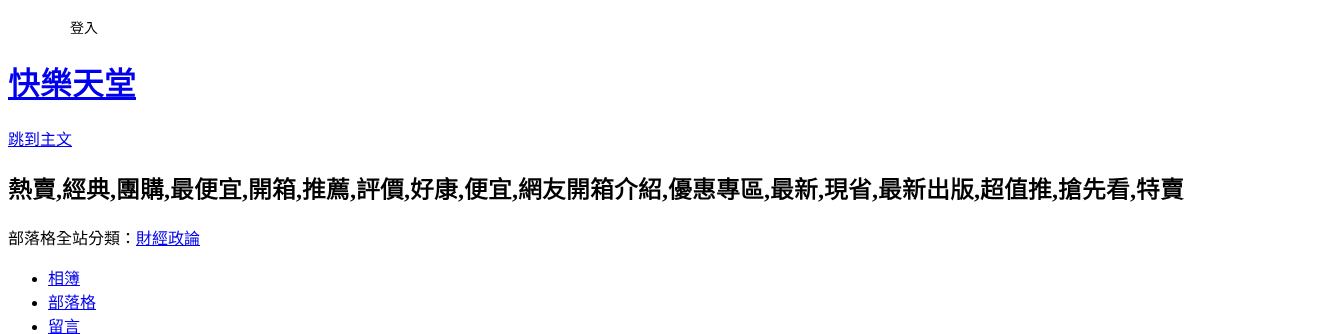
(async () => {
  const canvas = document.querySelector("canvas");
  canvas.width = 1331;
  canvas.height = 334;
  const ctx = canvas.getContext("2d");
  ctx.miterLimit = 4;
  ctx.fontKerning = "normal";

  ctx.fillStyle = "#ffffff";
  ctx.fillRect(0, 0, 1331, 334);
  for (const [x, y, w, h, color] of [
    [8, 97, 128, 3, "#0000ee"],
    [8, 146, 64, 1, "#0000ee"],
    [136, 245, 64, 1, "#0000ee"],
  ]) {
    ctx.fillStyle = color;
    ctx.fillRect(x, y, w, h);
  }
  ctx.fillStyle = "#000000";
  ctx.beginPath();
  ctx.arc(34.5, 279.5, 2.5, 0, Math.PI * 2);
  ctx.fill();
  ctx.fillStyle = "#0000ee";
  ctx.fillRect(48, 285, 32, 1);
  ctx.fillStyle = "#000000";
  ctx.beginPath();
  ctx.arc(34.5, 303.5, 2.5, 0, Math.PI * 2);
  ctx.fill();
  ctx.fillStyle = "#0000ee";
  ctx.fillRect(48, 309, 48, 1);
  ctx.fillStyle = "#000000";
  ctx.beginPath();
  ctx.arc(34.5, 327.5, 2.5, 0, Math.PI * 2);
  ctx.fill();
  ctx.fillStyle = "#0000ee";
  ctx.fillRect(48, 333, 32, 1);
  ctx.font = "14px Noto Sans CJK TC";
  ctx.fillStyle = "#000000";
  ctx.fillText("登入", 70, 33);
  ctx.font = "bold 32px Noto Sans CJK TC";
  ctx.fillStyle = "#0000ee";
  ctx.fillText("快樂天堂", 8, 95);
  ctx.font = "16px Noto Sans CJK TC";
  ctx.fillText("跳到主文", 8, 145);
  ctx.font = "bold 24px Noto Sans CJK TC";
  ctx.fillStyle = "#000000";
  ctx.fillText("熱賣", 8, 198);
  ctx.font = "bold 24px Liberation Serif";
  ctx.fillText(",", 56, 198);
  ctx.font = "bold 24px Noto Sans CJK TC";
  ctx.fillText("經典", 62, 198);
  ctx.font = "bold 24px Liberation Serif";
  ctx.fillText(",", 110, 198);
  ctx.font = "bold 24px Noto Sans CJK TC";
  ctx.fillText("團購", 116, 198);
  ctx.font = "bold 24px Liberation Serif";
  ctx.fillText(",", 164, 198);
  ctx.font = "bold 24px Noto Sans CJK TC";
  ctx.fillText("最便宜", 170, 198);
  ctx.font = "bold 24px Liberation Serif";
  ctx.fillText(",", 242, 198);
  ctx.font = "bold 24px Noto Sans CJK TC";
  ctx.fillText("開箱", 248, 198);
  ctx.font = "bold 24px Liberation Serif";
  ctx.fillText(",", 296, 198);
  ctx.font = "bold 24px Noto Sans CJK TC";
  ctx.fillText("推薦", 302, 198);
  ctx.font = "bold 24px Liberation Serif";
  ctx.fillText(",", 350, 198);
  ctx.font = "bold 24px Noto Sans CJK TC";
  ctx.fillText("評價", 356, 198);
  ctx.font = "bold 24px Liberation Serif";
  ctx.fillText(",", 404, 198);
  ctx.font = "bold 24px Noto Sans CJK TC";
  ctx.fillText("好康", 410, 198);
  ctx.font = "bold 24px Liberation Serif";
  ctx.fillText(",", 458, 198);
  ctx.font = "bold 24px Noto Sans CJK TC";
  ctx.fillText("便宜", 464, 198);
  ctx.font = "bold 24px Liberation Serif";
  ctx.fillText(",", 512, 198);
  ctx.font = "bold 24px Noto Sans CJK TC";
  ctx.fillText("網友開箱介紹", 518, 198);
  ctx.font = "bold 24px Liberation Serif";
  ctx.fillText(",", 662, 198);
  ctx.font = "bold 24px Noto Sans CJK TC";
  ctx.fillText("優惠專區", 668, 198);
  ctx.font = "bold 24px Liberation Serif";
  ctx.fillText(",", 764, 198);
  ctx.font = "bold 24px Noto Sans CJK TC";
  ctx.fillText("最新", 770, 198);
  ctx.font = "bold 24px Liberation Serif";
  ctx.fillText(",", 818, 198);
  ctx.font = "bold 24px Noto Sans CJK TC";
  ctx.fillText("現省", 824, 198);
  ctx.font = "bold 24px Liberation Serif";
  ctx.fillText(",", 872, 198);
  ctx.font = "bold 24px Noto Sans CJK TC";
  ctx.fillText("最新出版", 878, 198);
  ctx.font = "bold 24px Liberation Serif";
  ctx.fillText(",", 974, 198);
  ctx.font = "bold 24px Noto Sans CJK TC";
  ctx.fillText("超值推", 980, 198);
  ctx.font = "bold 24px Liberation Serif";
  ctx.fillText(",", 1052, 198);
  ctx.font = "bold 24px Noto Sans CJK TC";
  ctx.fillText("搶先看", 1058, 198);
  ctx.font = "bold 24px Liberation Serif";
  ctx.fillText(",", 1130, 198);
  ctx.font = "bold 24px Noto Sans CJK TC";
  ctx.fillText("特賣", 1136, 198);
  ctx.font = "16px Noto Sans CJK TC";
  ctx.fillText("部落格全站分類：", 8, 244);
  ctx.fillStyle = "#0000ee";
  for (const [text, x, y] of [
    ["財經政論", 136, 244],
    ["相簿", 48, 284],
    ["部落格", 48, 308],
    ["留言", 48, 332],
  ]) {
    ctx.fillText(text, x, y);
  }
})();
